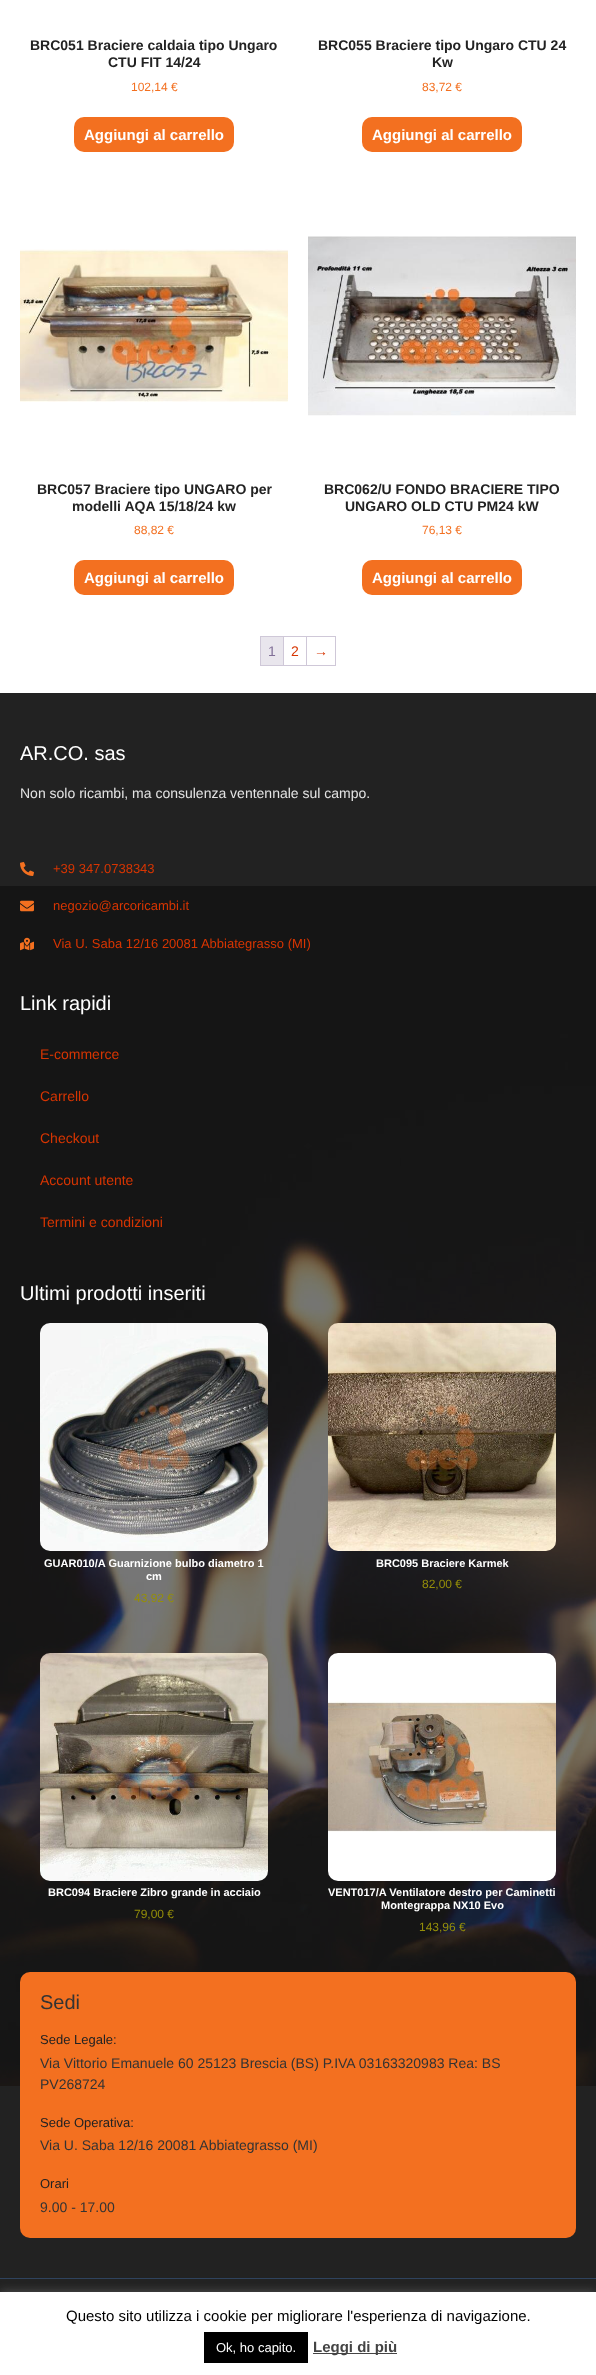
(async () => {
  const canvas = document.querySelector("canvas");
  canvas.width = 596;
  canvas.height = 2375;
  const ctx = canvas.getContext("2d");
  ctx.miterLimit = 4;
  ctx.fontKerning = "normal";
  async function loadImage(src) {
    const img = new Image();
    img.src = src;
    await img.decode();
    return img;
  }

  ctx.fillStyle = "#ffffff";
  ctx.fillRect(0, 0, 596, 2375);
  ctx.fillStyle = "#f37020";
  ctx.beginPath();
  ctx.roundRect(74, 117, 160, 35, 10);
  ctx.fill();
  ctx.beginPath();
  ctx.roundRect(362, 117, 160, 35, 10);
  ctx.fill();
  ctx.drawImage(await loadImage("img/1.png"), 20, 249, 268, 153);
  ctx.beginPath();
  ctx.roundRect(74, 560, 160, 35, 10);
  ctx.fill();
  ctx.drawImage(await loadImage("img/2.png"), 308, 236, 268, 180);
  ctx.beginPath();
  ctx.roundRect(362, 560, 160, 35, 10);
  ctx.fill();
  for (const [x, y, w, h, color] of [
    [260, 636, 76, 1, "#cfc8d8"],
    [260, 665, 76, 1, "#cfc8d8"],
    [260, 636, 1, 30, "#cfc8d8"],
    [283, 637, 1, 28, "#cfc8d8"],
    [261, 637, 22, 28, "#e9e6ed"],
    [306, 637, 1, 28, "#cfc8d8"],
    [335, 637, 1, 28, "#cfc8d8"],
    [0, 693, 596, 1585, "#222222"],
  ]) {
    ctx.fillStyle = color;
    ctx.fillRect(x, y, w, h);
  }
  ctx.drawImage(await loadImage("img/3.png"), 20, 862, 14, 14);
  ctx.drawImage(await loadImage("img/10.png"), 0, 886, 596, 1200);
  ctx.drawImage(await loadImage("img/4.png"), 20, 900, 14, 12);
  ctx.drawImage(await loadImage("img/5.png"), 20, 937, 14, 14);
  ctx.drawImage(await loadImage("img/6.png"), 40, 1323, 228, 228);
  ctx.drawImage(await loadImage("img/7.png"), 328, 1323, 228, 228);
  ctx.drawImage(await loadImage("img/8.png"), 40, 1653, 228, 228);
  ctx.drawImage(await loadImage("img/9.png"), 328, 1653, 228, 228);
  ctx.fillStyle = "#f37020";
  ctx.beginPath();
  ctx.roundRect(20, 1972, 556, 266, 10);
  ctx.fill();
  ctx.fillStyle = "#222222";
  ctx.fillRect(0, 2279, 596, 13);
  ctx.fillStyle = "#2f435e";
  ctx.fillRect(0, 2278, 596, 1);
  ctx.fillStyle = "rgba(172, 171, 171, 0.3)";
  ctx.filter = "blur(5px)";
  ctx.beginPath();
  ctx.rect(0, 2291, 596, 83);
  ctx.fill();
  ctx.filter = "none";
  for (const [x, y, w, h, color] of [
    [0, 2292, 596, 83, "#ffffff"],
    [204, 2332, 104, 31, "#000000"],
    [313, 2353, 84, 1, "#444444"],
  ]) {
    ctx.fillStyle = color;
    ctx.fillRect(x, y, w, h);
  }
  ctx.font = "bold 14px Liberation Sans";
  ctx.fillStyle = "#222222";
  ctx.fillText("BRC051 Braciere caldaia tipo Ungaro", 30, 50);
  ctx.fillText("CTU FIT 14/24", 108, 67);
  ctx.font = "12px Liberation Sans";
  ctx.fillStyle = "#f37020";
  ctx.fillText("102,14 €", 131, 91);
  ctx.font = "bold 15px Liberation Sans";
  ctx.fillStyle = "#ffffff";
  ctx.fillText("Aggiungi al carrello", 84, 140);
  ctx.font = "bold 14px Liberation Sans";
  ctx.fillStyle = "#222222";
  ctx.fillText("BRC055 Braciere tipo Ungaro CTU 24", 318, 50);
  ctx.fillText("Kw", 432, 67);
  ctx.font = "12px Liberation Sans";
  ctx.fillStyle = "#f37020";
  ctx.fillText("83,72 €", 422, 91);
  ctx.font = "bold 15px Liberation Sans";
  ctx.fillStyle = "#ffffff";
  ctx.fillText("Aggiungi al carrello", 372, 140);
  ctx.font = "bold 14px Liberation Sans";
  ctx.fillStyle = "#222222";
  ctx.fillText("BRC057 Braciere tipo UNGARO per", 37, 494);
  ctx.fillText("modelli AQA 15/18/24 kw", 72, 511);
  ctx.font = "12px Liberation Sans";
  ctx.fillStyle = "#f37020";
  ctx.fillText("88,82 €", 134, 534);
  ctx.font = "bold 15px Liberation Sans";
  ctx.fillStyle = "#ffffff";
  ctx.fillText("Aggiungi al carrello", 84, 583);
  ctx.font = "bold 14px Liberation Sans";
  ctx.fillStyle = "#222222";
  ctx.fillText("BRC062/U FONDO BRACIERE TIPO", 324, 494);
  ctx.fillText("UNGARO OLD CTU PM24 kW", 345, 511);
  ctx.font = "12px Liberation Sans";
  ctx.fillStyle = "#f37020";
  ctx.fillText("76,13 €", 422, 534);
  ctx.font = "bold 15px Liberation Sans";
  ctx.fillStyle = "#ffffff";
  ctx.fillText("Aggiungi al carrello", 372, 583);
  ctx.font = "14px Liberation Sans";
  ctx.fillStyle = "#816f98";
  ctx.fillText("1", 268, 656);
  ctx.fillStyle = "#d73502";
  ctx.fillText("2", 291, 656);
  ctx.fillText("→", 314, 656);
  ctx.font = "20px Liberation Sans";
  ctx.fillStyle = "#ffffff";
  ctx.fillText("AR.CO. sas", 20, 760);
  ctx.font = "14px Liberation Sans";
  ctx.fillStyle = "#e4e4e4";
  ctx.fillText("Non solo ricambi, ma consulenza ventennale sul campo.", 20, 798);
  ctx.font = "13px Liberation Sans";
  ctx.fillStyle = "#d73502";
  for (const [text, x, y] of [
    ["+39 347.0738343", 53, 873],
    ["negozio@arcoricambi.it", 53, 910],
    ["Via U. Saba 12/16 20081 Abbiategrasso (MI)", 53, 948],
  ]) {
    ctx.fillText(text, x, y);
  }
  ctx.font = "20px Liberation Sans";
  ctx.fillStyle = "#ffffff";
  ctx.fillText("Link rapidi", 20, 1010);
  ctx.font = "14px Liberation Sans";
  ctx.fillStyle = "#d73502";
  for (const [text, x, y] of [
    ["E-commerce", 40, 1059],
    ["Carrello", 40, 1101],
    ["Checkout", 40, 1143],
    ["Account utente", 40, 1185],
    ["Termini e condizioni", 40, 1227],
  ]) {
    ctx.fillText(text, x, y);
  }
  ctx.font = "20px Liberation Sans";
  ctx.fillStyle = "#ffffff";
  ctx.fillText("Ultimi prodotti inseriti", 20, 1300);
  ctx.font = "bold 11px Liberation Sans";
  ctx.fillText("GUAR010/A Guarnizione bulbo diametro 1", 44, 1567);
  ctx.fillText("cm", 146, 1580);
  ctx.font = "12px Liberation Sans";
  ctx.fillStyle = "#958e09";
  ctx.fillText("43,92 €", 134, 1602);
  ctx.font = "bold 11px Liberation Sans";
  ctx.fillStyle = "#ffffff";
  ctx.fillText("BRC095 Braciere Karmek", 376, 1567);
  ctx.font = "12px Liberation Sans";
  ctx.fillStyle = "#958e09";
  ctx.fillText("82,00 €", 422, 1588);
  ctx.font = "bold 11px Liberation Sans";
  ctx.fillStyle = "#ffffff";
  ctx.fillText("BRC094 Braciere Zibro grande in acciaio", 48, 1896);
  ctx.font = "12px Liberation Sans";
  ctx.fillStyle = "#958e09";
  ctx.fillText("79,00 €", 134, 1918);
  ctx.font = "bold 11px Liberation Sans";
  ctx.fillStyle = "#ffffff";
  ctx.fillText("VENT017/A Ventilatore destro per Caminetti", 328, 1896);
  ctx.fillText("Montegrappa NX10 Evo", 381, 1909);
  ctx.font = "12px Liberation Sans";
  ctx.fillStyle = "#958e09";
  ctx.fillText("143,96 €", 419, 1931);
  ctx.font = "20px Liberation Sans";
  ctx.fillStyle = "#333333";
  ctx.fillText("Sedi", 40, 2009);
  ctx.font = "13px Liberation Sans";
  ctx.fillStyle = "#222222";
  ctx.fillText("Sede Legale:", 40, 2044);
  ctx.font = "14px Liberation Sans";
  ctx.fillStyle = "#333333";
  ctx.fillText("Via Vittorio Emanuele 60 25123 Brescia (BS) P.IVA 03163320983 Rea: BS", 40, 2068);
  ctx.fillText("PV268724", 40, 2089);
  ctx.font = "13px Liberation Sans";
  ctx.fillStyle = "#222222";
  ctx.fillText("Sede Operativa:", 40, 2127);
  ctx.font = "14px Liberation Sans";
  ctx.fillStyle = "#333333";
  ctx.fillText("Via U. Saba 12/16 20081 Abbiategrasso (MI)", 40, 2150);
  ctx.font = "13px Liberation Sans";
  ctx.fillStyle = "#222222";
  ctx.fillText("Orari", 40, 2188);
  ctx.font = "14px Liberation Sans";
  ctx.fillStyle = "#333333";
  ctx.fillText("9.00 - 17.00", 40, 2212);
  ctx.font = "15px Liberation Sans";
  ctx.fillStyle = "#000000";
  ctx.fillText("Questo sito utilizza i cookie per migliorare l'esperienza di navigazione.", 66, 2321);
  ctx.font = "13px Liberation Sans";
  ctx.fillStyle = "#ffffff";
  ctx.fillText("Ok, ho capito.", 216, 2352);
  ctx.font = "bold 15px Liberation Sans";
  ctx.fillStyle = "#444444";
  ctx.fillText("Leggi di più", 313, 2352);
})();
